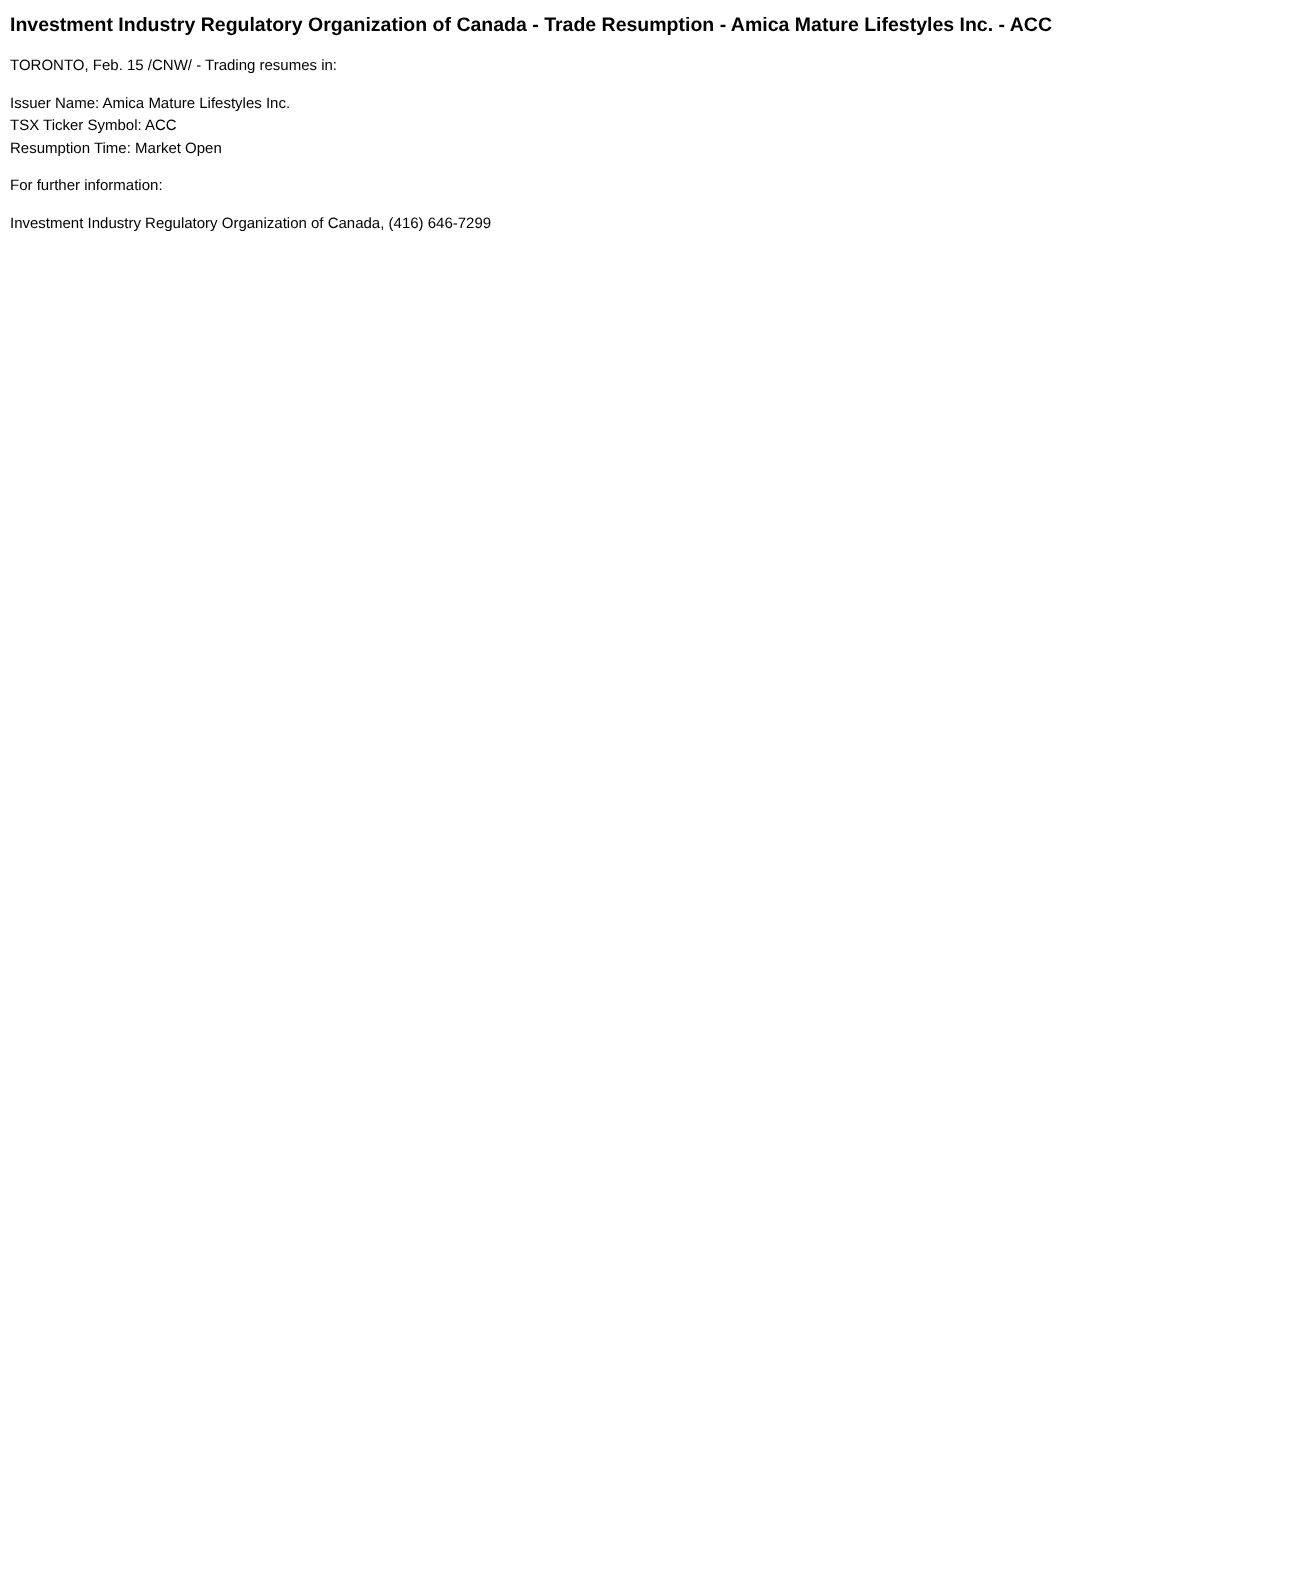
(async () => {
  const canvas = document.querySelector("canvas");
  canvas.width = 1311;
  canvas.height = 1578;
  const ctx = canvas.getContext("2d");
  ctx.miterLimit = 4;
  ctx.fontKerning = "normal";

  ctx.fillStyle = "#ffffff";
  ctx.fillRect(0, 0, 1311, 1578);
  ctx.font = "bold 19.5px Liberation Sans";
  ctx.fillStyle = "#000000";
  ctx.fillText("Investment Industry Regulatory Organization of Canada - Trade Resumption - Amica Mature Lifestyles Inc. - ACC", 10, 31);
  ctx.font = "15px Liberation Sans";
  for (const [text, x, y] of [
    ["TORONTO, Feb. 15 /CNW/ - Trading resumes in:", 10, 70],
    ["Issuer Name: Amica Mature Lifestyles Inc.", 10, 108],
    ["TSX Ticker Symbol: ACC", 10, 130],
    ["Resumption Time: Market Open", 10, 153],
    ["For further information:", 10, 190],
    ["Investment Industry Regulatory Organization of Canada, (416) 646-7299", 10, 228],
  ]) {
    ctx.fillText(text, x, y);
  }
})();
